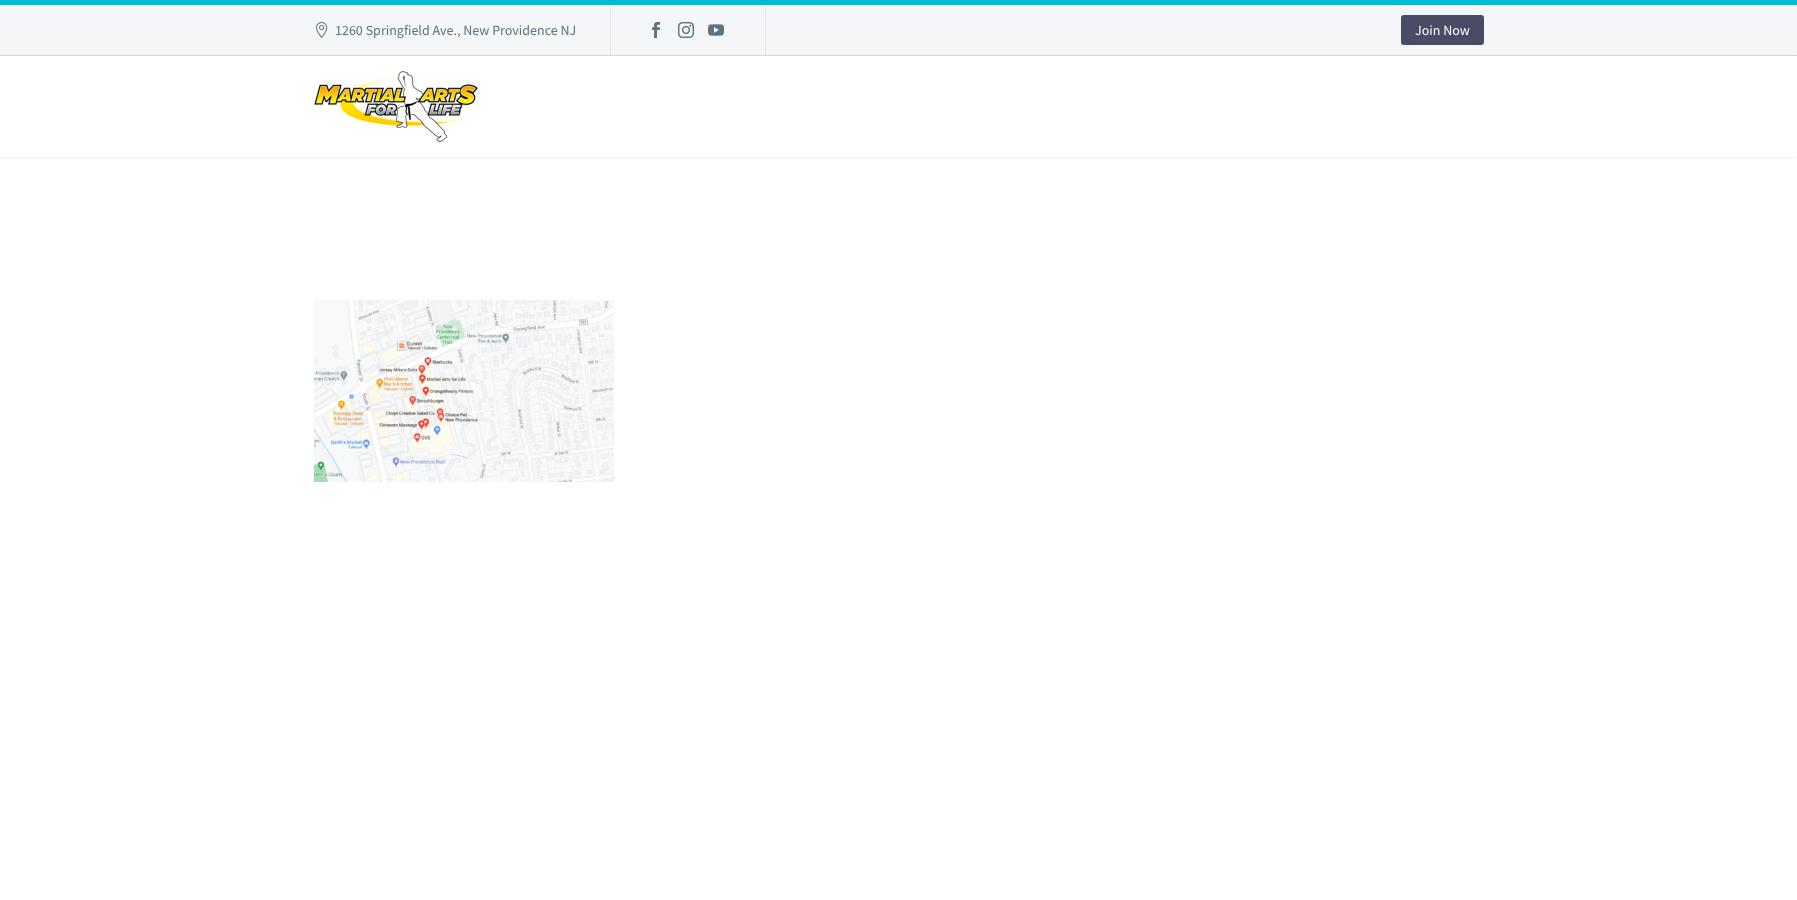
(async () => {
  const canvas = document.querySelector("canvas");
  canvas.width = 1797;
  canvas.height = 900;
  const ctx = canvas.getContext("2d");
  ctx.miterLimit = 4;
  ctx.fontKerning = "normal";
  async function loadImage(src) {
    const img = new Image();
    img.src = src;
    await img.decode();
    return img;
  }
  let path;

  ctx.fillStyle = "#ffffff";
  ctx.fillRect(0, 0, 1797, 900);
  for (const [x, y, w, h, color] of [
    [0, 5, 1797, 50, "#f4f6f7"],
    [0, 0, 1797, 5, "#00bcd4"],
    [0, 55, 1797, 1, "#dfe5e8"],
  ]) {
    ctx.fillStyle = color;
    ctx.fillRect(x, y, w, h);
  }
  ctx.drawImage(await loadImage("img/1.png"), 316, 22, 12, 16);
  ctx.fillRect(610, 5, 1, 50);
  ctx.drawImage(await loadImage("img/2.png"), 652, 22, 8, 16);
  ctx.drawImage(await loadImage("img/3.png"), 678, 22, 16, 16);
  ctx.drawImage(await loadImage("img/4.png"), 708, 24, 16, 12);
  ctx.fillRect(765, 5, 1, 50);
  ctx.fillStyle = "#494c64";
  ctx.beginPath();
  ctx.roundRect(1401, 15, 83, 30, 3);
  ctx.fill();
  ctx.save();
  path = new Path2D("M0 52H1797V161H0ZM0 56H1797V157H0Z");
  ctx.clip(path, "evenodd");
  ctx.fillStyle = "rgba(56, 69, 84, 0.2)";
  ctx.filter = "blur(1px)";
  ctx.beginPath();
  ctx.rect(0, 56, 1797, 101);
  ctx.fill();
  ctx.filter = "none";
  ctx.restore();
  ctx.drawImage(await loadImage("img/5.png"), 314, 71, 164, 71);
  ctx.drawImage(await loadImage("img/6.png"), 314, 300, 300, 182);
  ctx.font = "14px Source Sans Pro";
  ctx.fillStyle = "#5f727f";
  ctx.fillText("1260 Springfield Ave., New Providence NJ", 335, 35);
  ctx.fillStyle = "#ffffff";
  ctx.fillText("Join Now", 1415, 35);
})();
